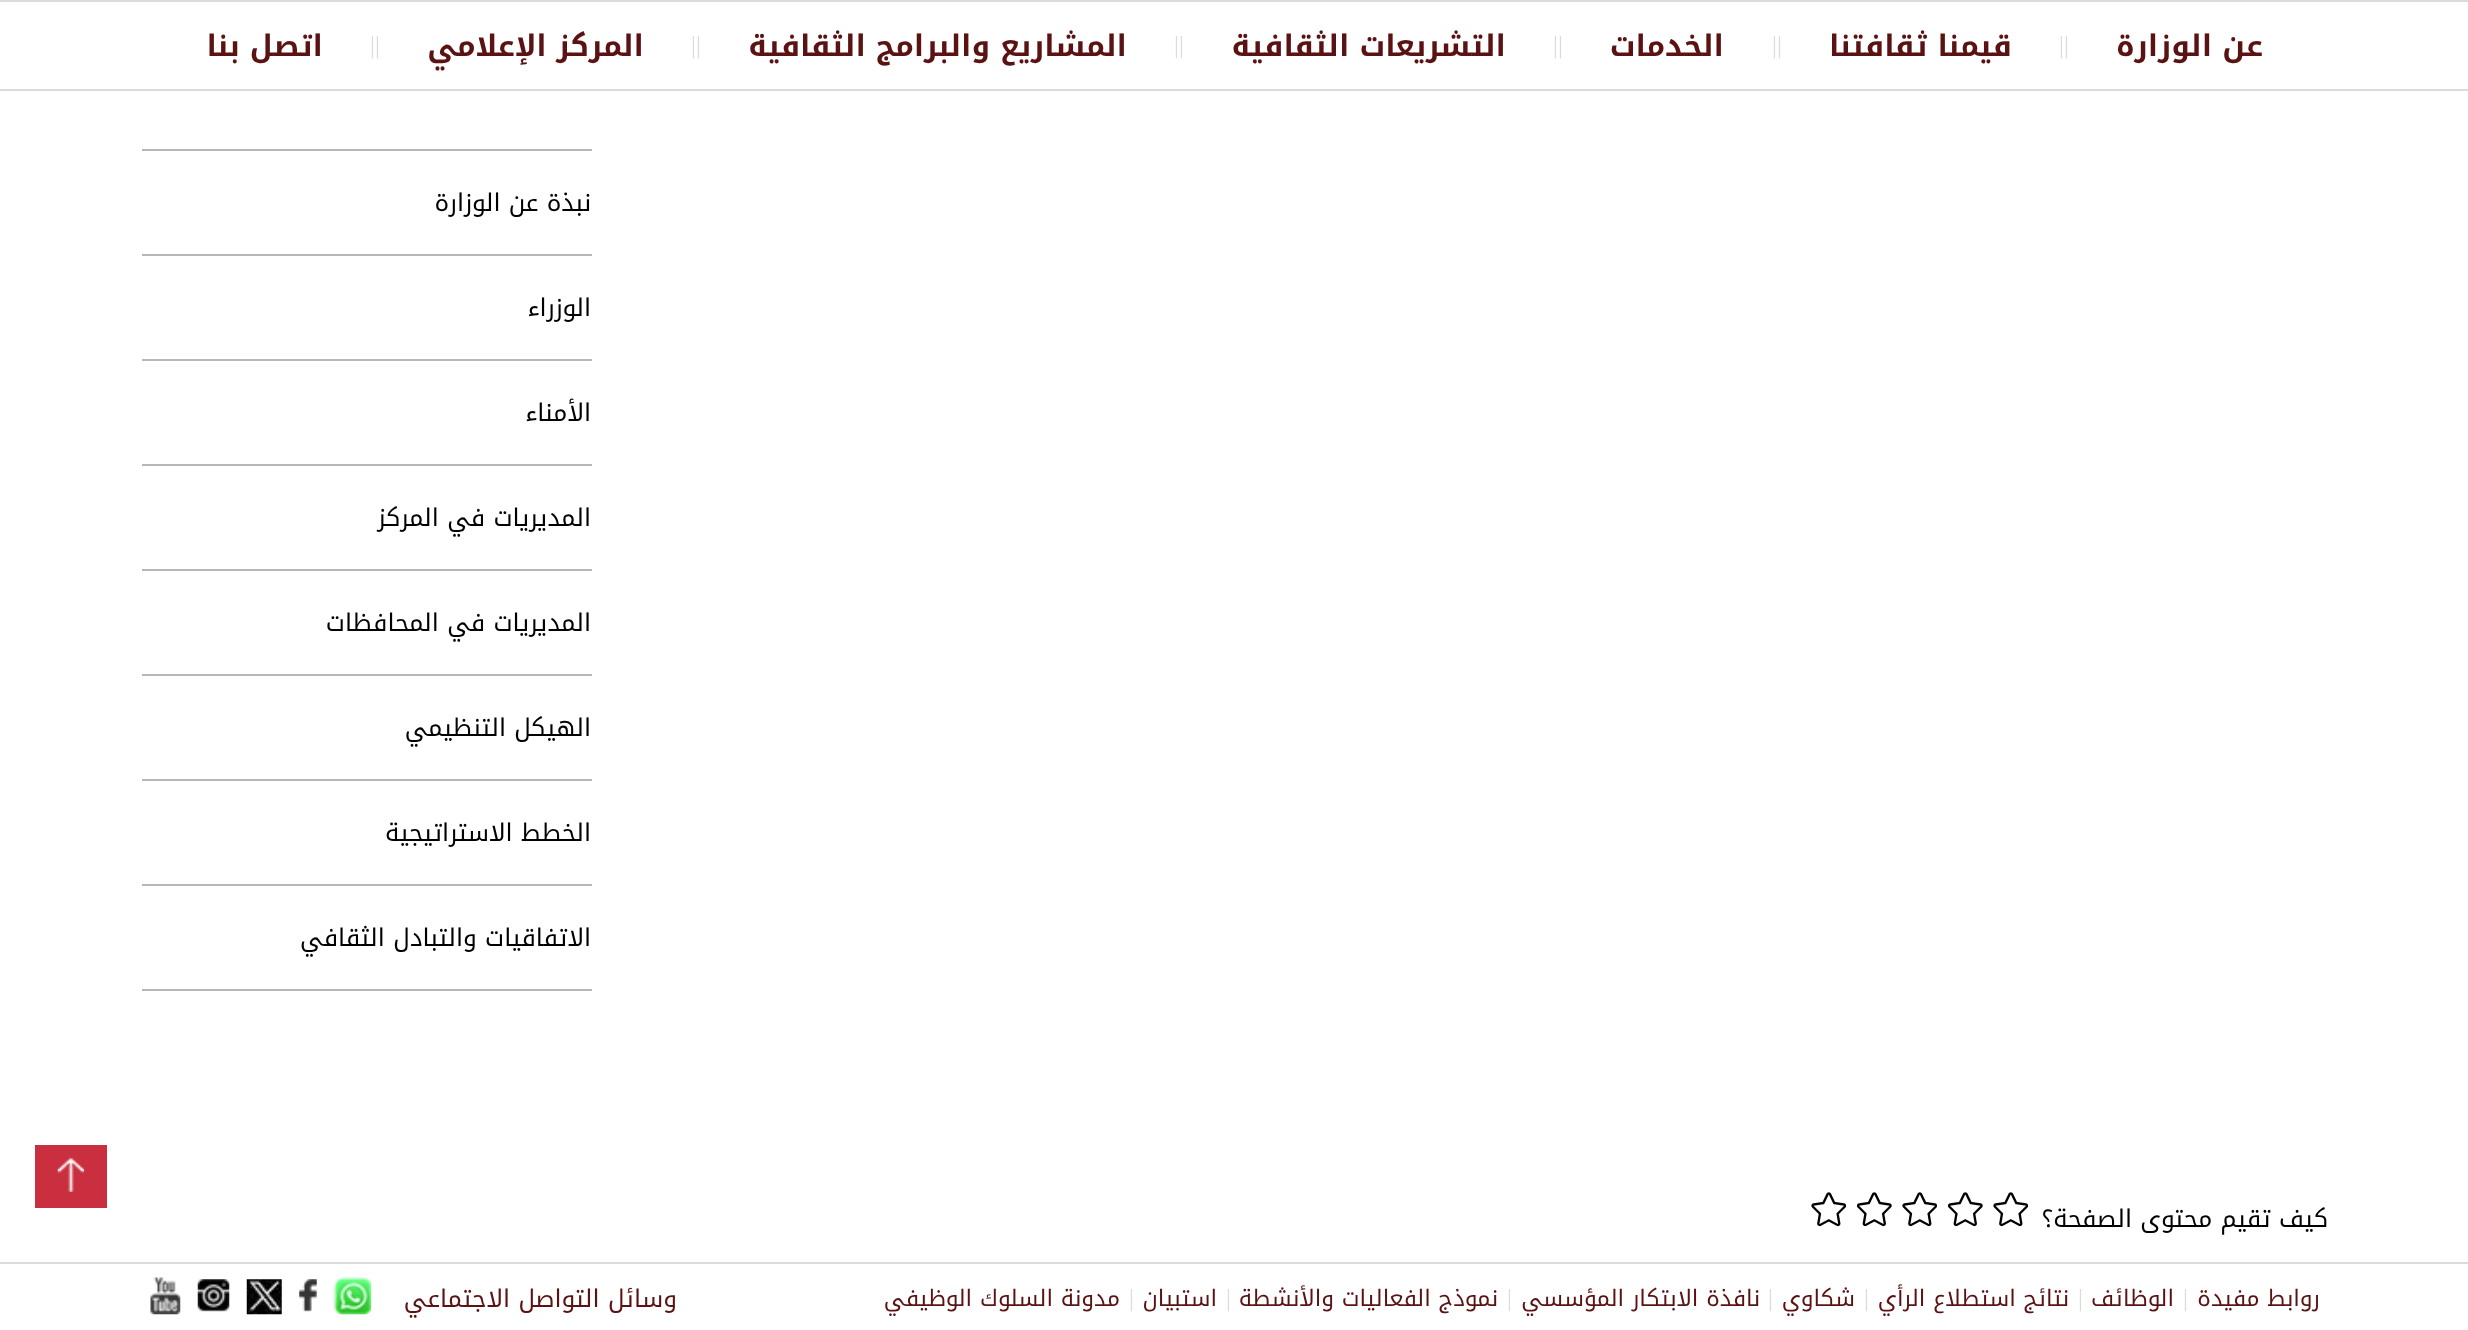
(async () => {
  const canvas = document.querySelector("canvas");
  canvas.width = 2468;
  canvas.height = 1330;
  const ctx = canvas.getContext("2d");
  ctx.miterLimit = 4;
  ctx.fontKerning = "normal";
  async function loadImage(src) {
    const img = new Image();
    img.src = src;
    await img.decode();
    return img;
  }

  ctx.fillStyle = "#ffffff";
  ctx.fillRect(0, 0, 2468, 1330);
  for (const [x, y, w, h, color] of [
    [0, 0, 2468, 2, "#dbdbdb"],
    [0, 89, 2468, 2, "#dbdbdb"],
    [142, 149, 450, 2, "#b7b7b7"],
    [142, 254, 450, 2, "#b7b7b7"],
    [142, 359, 450, 2, "#b7b7b7"],
    [142, 464, 450, 2, "#b7b7b7"],
    [142, 569, 450, 2, "#b7b7b7"],
    [142, 674, 450, 2, "#b7b7b7"],
    [142, 779, 450, 2, "#b7b7b7"],
    [142, 884, 450, 2, "#b7b7b7"],
    [142, 989, 450, 2, "#b7b7b7"],
    [35, 1145, 72, 63, "#ca2f3f"],
  ]) {
    ctx.fillStyle = color;
    ctx.fillRect(x, y, w, h);
  }
  ctx.drawImage(await loadImage("img/1.png"), 57, 1158, 27, 34);
  ctx.drawImage(await loadImage("img/2.png"), 1993, 1192, 35, 35);
  ctx.drawImage(await loadImage("img/3.png"), 1948, 1192, 35, 35);
  ctx.drawImage(await loadImage("img/2.png"), 1902, 1192, 35, 35);
  ctx.drawImage(await loadImage("img/3.png"), 1857, 1192, 35, 35);
  ctx.drawImage(await loadImage("img/2.png"), 1811, 1192, 35, 35);
  ctx.fillStyle = "#dbdbdb";
  ctx.fillRect(0, 1262, 2468, 2);
  ctx.drawImage(await loadImage("img/4.png"), 334, 1277, 37, 38);
  ctx.drawImage(await loadImage("img/5.png"), 299, 1279, 18, 33);
  ctx.drawImage(await loadImage("img/6.png"), 246, 1279, 36, 36);
  ctx.drawImage(await loadImage("img/7.png"), 197, 1279, 33, 33);
  ctx.drawImage(await loadImage("img/8.png"), 150, 1277, 31, 38);
  ctx.direction = "rtl";
  ctx.font = "bold 29.75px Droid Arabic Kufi";
  ctx.fillStyle = "#5a1213";
  ctx.fillText("عن الوزارة", 2263, 56);
  ctx.direction = "ltr";
  ctx.font = "24.5px Liberation Serif";
  ctx.fillStyle = "#dbdbdb";
  ctx.fillText("||", 2059, 53);
  ctx.direction = "rtl";
  ctx.font = "bold 29.75px Droid Arabic Kufi";
  ctx.fillStyle = "#5a1213";
  ctx.fillText("قيمنا ثقافتنا", 2012, 56);
  ctx.direction = "ltr";
  ctx.font = "24.5px Liberation Serif";
  ctx.fillStyle = "#dbdbdb";
  ctx.fillText("||", 1772, 53);
  ctx.direction = "rtl";
  ctx.font = "bold 29.75px Droid Arabic Kufi";
  ctx.fillStyle = "#5a1213";
  ctx.fillText("الخدمات", 1724, 56);
  ctx.direction = "ltr";
  ctx.font = "24.5px Liberation Serif";
  ctx.fillStyle = "#dbdbdb";
  ctx.fillText("||", 1553, 53);
  ctx.direction = "rtl";
  ctx.font = "bold 29.75px Droid Arabic Kufi";
  ctx.fillStyle = "#5a1213";
  ctx.fillText("التشريعات الثقافية", 1506, 56);
  ctx.direction = "ltr";
  ctx.font = "24.5px Liberation Serif";
  ctx.fillStyle = "#dbdbdb";
  ctx.fillText("||", 1174, 53);
  ctx.direction = "rtl";
  ctx.font = "bold 29.75px Droid Arabic Kufi";
  ctx.fillStyle = "#5a1213";
  ctx.fillText("المشاريع والبرامج الثقافية", 1127, 56);
  ctx.direction = "ltr";
  ctx.font = "24.5px Liberation Serif";
  ctx.fillStyle = "#dbdbdb";
  ctx.fillText("||", 691, 53);
  ctx.direction = "rtl";
  ctx.font = "bold 29.75px Droid Arabic Kufi";
  ctx.fillStyle = "#5a1213";
  ctx.fillText("المركز الإعلامي", 644, 56);
  ctx.direction = "ltr";
  ctx.font = "24.5px Liberation Serif";
  ctx.fillStyle = "#dbdbdb";
  ctx.fillText("||", 370, 53);
  ctx.direction = "rtl";
  ctx.font = "bold 29.75px Droid Arabic Kufi";
  ctx.fillStyle = "#5a1213";
  ctx.fillText("اتصل بنا", 323, 56);
  ctx.font = "24.5px Droid Arabic Kufi";
  ctx.fillStyle = "#000000";
  for (const [text, x, y] of [
    ["نبذة عن الوزارة", 591, 211],
    ["الوزراء", 591, 316],
    ["الأمناء", 591, 421],
    ["المديريات في المركز", 591, 526],
    ["المديريات في المحافظات", 591, 631],
    ["الهيكل التنظيمي", 591, 736],
    ["الخطط الاستراتيجية", 591, 841],
    ["الاتفاقيات والتبادل الثقافي", 591, 946],
    ["كيف تقيم محتوى الصفحة؟", 2328, 1227],
  ]) {
    ctx.fillText(text, x, y);
  }
  ctx.font = "22.75px Droid Arabic Kufi";
  ctx.fillStyle = "#5a1213";
  ctx.fillText("روابط مفيدة", 2320, 1306);
  ctx.direction = "ltr";
  ctx.font = "24.5px Liberation Serif";
  ctx.fillStyle = "#dbdbdb";
  ctx.fillText("|", 2183, 1306);
  ctx.direction = "rtl";
  ctx.font = "22.75px Droid Arabic Kufi";
  ctx.fillStyle = "#5a1213";
  ctx.fillText("الوظائف", 2174, 1306);
  ctx.direction = "ltr";
  ctx.font = "24.5px Liberation Serif";
  ctx.fillStyle = "#dbdbdb";
  ctx.fillText("|", 2078, 1306);
  ctx.direction = "rtl";
  ctx.font = "22.75px Droid Arabic Kufi";
  ctx.fillStyle = "#5a1213";
  ctx.fillText("نتائج استطلاع الرأي", 2069, 1306);
  ctx.direction = "ltr";
  ctx.font = "24.5px Liberation Serif";
  ctx.fillStyle = "#dbdbdb";
  ctx.fillText("|", 1864, 1306);
  ctx.direction = "rtl";
  ctx.font = "22.75px Droid Arabic Kufi";
  ctx.fillStyle = "#5a1213";
  ctx.fillText("شكاوي", 1855, 1306);
  ctx.direction = "ltr";
  ctx.font = "24.5px Liberation Serif";
  ctx.fillStyle = "#dbdbdb";
  ctx.fillText("|", 1768, 1306);
  ctx.direction = "rtl";
  ctx.font = "22.75px Droid Arabic Kufi";
  ctx.fillStyle = "#5a1213";
  ctx.fillText("نافذة الابتكار المؤسسي", 1760, 1306);
  ctx.direction = "ltr";
  ctx.font = "24.5px Liberation Serif";
  ctx.fillStyle = "#dbdbdb";
  ctx.fillText("|", 1507, 1306);
  ctx.direction = "rtl";
  ctx.font = "22.75px Droid Arabic Kufi";
  ctx.fillStyle = "#5a1213";
  ctx.fillText("نموذج الفعاليات والأنشطة", 1498, 1306);
  ctx.direction = "ltr";
  ctx.font = "24.5px Liberation Serif";
  ctx.fillStyle = "#dbdbdb";
  ctx.fillText("|", 1226, 1306);
  ctx.direction = "rtl";
  ctx.font = "22.75px Droid Arabic Kufi";
  ctx.fillStyle = "#5a1213";
  ctx.fillText("استبيان", 1217, 1306);
  ctx.direction = "ltr";
  ctx.font = "24.5px Liberation Serif";
  ctx.fillStyle = "#dbdbdb";
  ctx.fillText("|", 1129, 1306);
  ctx.direction = "rtl";
  ctx.font = "22.75px Droid Arabic Kufi";
  ctx.fillStyle = "#5a1213";
  ctx.fillText("مدونة السلوك الوظيفي", 1120, 1306);
  ctx.font = "24.5px Droid Arabic Kufi";
  ctx.fillText("وسائل التواصل الاجتماعي", 677, 1307);
})();
